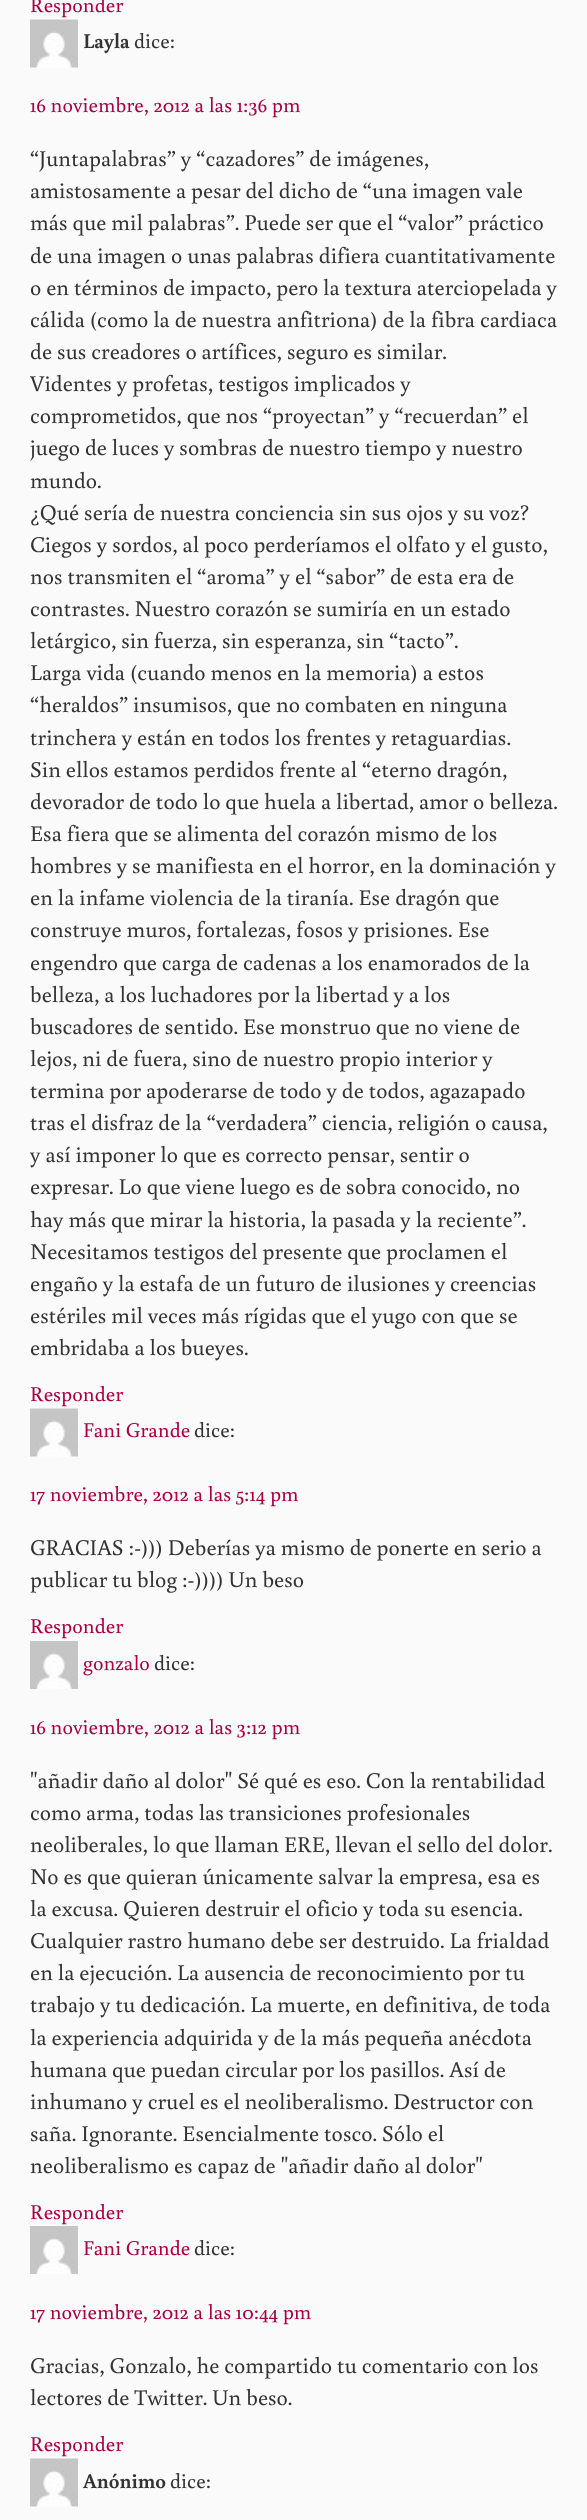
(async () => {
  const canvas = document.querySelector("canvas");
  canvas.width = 587;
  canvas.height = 2520;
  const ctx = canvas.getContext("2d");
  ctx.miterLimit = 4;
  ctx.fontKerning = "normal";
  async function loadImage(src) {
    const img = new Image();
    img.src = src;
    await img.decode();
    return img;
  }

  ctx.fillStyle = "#fafafa";
  ctx.fillRect(0, 0, 587, 2520);
  ctx.drawImage(await loadImage("img/1.png"), 30, 19, 48, 49);
  ctx.drawImage(await loadImage("img/1.png"), 30, 1408, 48, 49);
  ctx.drawImage(await loadImage("img/2.png"), 30, 1641, 48, 48);
  ctx.drawImage(await loadImage("img/2.png"), 30, 2226, 48, 48);
  ctx.drawImage(await loadImage("img/1.png"), 30, 2458, 48, 49);
  ctx.font = "21px Buenard";
  ctx.fillStyle = "#a70043";
  ctx.fillText("Responder", 30, 12);
  ctx.font = "bold 21px Buenard";
  ctx.fillStyle = "#333333";
  ctx.fillText("Layla", 83, 48);
  ctx.font = "21px Buenard";
  ctx.fillText("dice:", 134, 48);
  ctx.fillStyle = "#a70043";
  ctx.fillText("16 noviembre, 2012 a las 1:36 pm", 30, 112);
  ctx.font = "22.5px Buenard";
  ctx.fillStyle = "#333333";
  for (const [text, x, y] of [
    ["“Juntapalabras” y “cazadores” de imágenes,", 30, 166],
    ["amistosamente a pesar del dicho de “una imagen vale", 30, 198],
    ["más que mil palabras”. Puede ser que el “valor” práctico", 30, 230],
    ["de una imagen o unas palabras difiera cuantitativamente", 30, 263],
    ["o en términos de impacto, pero la textura aterciopelada y", 30, 295],
    ["cálida (como la de nuestra anfitriona) de la fibra cardiaca", 30, 327],
    ["de sus creadores o artífices, seguro es similar.", 30, 359],
    ["Videntes y profetas, testigos implicados y", 30, 391],
    ["comprometidos, que nos “proyectan” y “recuerdan” el", 30, 423],
    ["juego de luces y sombras de nuestro tiempo y nuestro", 30, 455],
    ["mundo.", 30, 488],
    ["¿Qué sería de nuestra conciencia sin sus ojos y su voz?", 30, 520],
    ["Ciegos y sordos, al poco perderíamos el olfato y el gusto,", 30, 552],
    ["nos transmiten el “aroma” y el “sabor” de esta era de", 30, 584],
    ["contrastes. Nuestro corazón se sumiría en un estado", 30, 616],
    ["letárgico, sin fuerza, sin esperanza, sin “tacto”.", 30, 648],
    ["Larga vida (cuando menos en la memoria) a estos", 30, 680],
    ["“heraldos” insumisos, que no combaten en ninguna", 30, 712],
    ["trinchera y están en todos los frentes y retaguardias.", 30, 745],
    ["Sin ellos estamos perdidos frente al “eterno dragón,", 30, 777],
    ["devorador de todo lo que huela a libertad, amor o belleza.", 30, 809],
    ["Esa fiera que se alimenta del corazón mismo de los", 30, 841],
    ["hombres y se manifiesta en el horror, en la dominación y", 30, 873],
    ["en la infame violencia de la tiranía. Ese dragón que", 30, 905],
    ["construye muros, fortalezas, fosos y prisiones. Ese", 30, 937],
    ["engendro que carga de cadenas a los enamorados de la", 30, 970],
    ["belleza, a los luchadores por la libertad y a los", 30, 1002],
    ["buscadores de sentido. Ese monstruo que no viene de", 30, 1034],
    ["lejos, ni de fuera, sino de nuestro propio interior y", 30, 1066],
    ["termina por apoderarse de todo y de todos, agazapado", 30, 1098],
    ["tras el disfraz de la “verdadera” ciencia, religión o causa,", 30, 1130],
    ["y así imponer lo que es correcto pensar, sentir o", 30, 1162],
    ["expresar. Lo que viene luego es de sobra conocido, no", 30, 1194],
    ["hay más que mirar la historia, la pasada y la reciente”.", 30, 1227],
    ["Necesitamos testigos del presente que proclamen el", 30, 1259],
    ["engaño y la estafa de un futuro de ilusiones y creencias", 30, 1291],
    ["estériles mil veces más rígidas que el yugo con que se", 30, 1323],
    ["embridaba a los bueyes.", 30, 1355],
  ]) {
    ctx.fillText(text, x, y);
  }
  ctx.font = "21px Buenard";
  ctx.fillStyle = "#a70043";
  ctx.fillText("Responder", 30, 1401);
  ctx.fillText("Fani Grande", 83, 1437);
  ctx.fillStyle = "#333333";
  ctx.fillText("dice:", 194, 1437);
  ctx.fillStyle = "#a70043";
  ctx.fillText("17 noviembre, 2012 a las 5:14 pm", 30, 1501);
  ctx.font = "22.5px Buenard";
  ctx.fillStyle = "#333333";
  ctx.fillText("GRACIAS :-))) Deberías ya mismo de ponerte en serio a", 30, 1555);
  ctx.fillText("publicar tu blog :-)))) Un beso", 30, 1587);
  ctx.font = "21px Buenard";
  ctx.fillStyle = "#a70043";
  ctx.fillText("Responder", 30, 1633);
  ctx.fillText("gonzalo", 83, 1670);
  ctx.fillStyle = "#333333";
  ctx.fillText("dice:", 154, 1670);
  ctx.fillStyle = "#a70043";
  ctx.fillText("16 noviembre, 2012 a las 3:12 pm", 30, 1734);
  ctx.font = "22.5px Buenard";
  ctx.fillStyle = "#333333";
  for (const [text, x, y] of [
    ["\"añadir daño al dolor\" Sé qué es eso. Con la rentabilidad", 30, 1788],
    ["como arma, todas las transiciones profesionales", 30, 1820],
    ["neoliberales, lo que llaman ERE, llevan el sello del dolor.", 30, 1852],
    ["No es que quieran únicamente salvar la empresa, esa es", 30, 1884],
    ["la excusa. Quieren destruir el oficio y toda su esencia.", 30, 1916],
    ["Cualquier rastro humano debe ser destruido. La frialdad", 30, 1948],
    ["en la ejecución. La ausencia de reconocimiento por tu", 30, 1980],
    ["trabajo y tu dedicación. La muerte, en definitiva, de toda", 30, 2012],
    ["la experiencia adquirida y de la más pequeña anécdota", 30, 2045],
    ["humana que puedan circular por los pasillos. Así de", 30, 2077],
    ["inhumano y cruel es el neoliberalismo. Destructor con", 30, 2109],
    ["saña. Ignorante. Esencialmente tosco. Sólo el", 30, 2141],
    ["neoliberalismo es capaz de \"añadir daño al dolor\"", 30, 2173],
  ]) {
    ctx.fillText(text, x, y);
  }
  ctx.font = "21px Buenard";
  ctx.fillStyle = "#a70043";
  ctx.fillText("Responder", 30, 2219);
  ctx.fillText("Fani Grande", 83, 2255);
  ctx.fillStyle = "#333333";
  ctx.fillText("dice:", 194, 2255);
  ctx.fillStyle = "#a70043";
  ctx.fillText("17 noviembre, 2012 a las 10:44 pm", 30, 2319);
  ctx.font = "22.5px Buenard";
  ctx.fillStyle = "#333333";
  ctx.fillText("Gracias, Gonzalo, he compartido tu comentario con los", 30, 2373);
  ctx.fillText("lectores de Twitter. Un beso.", 30, 2405);
  ctx.font = "21px Buenard";
  ctx.fillStyle = "#a70043";
  ctx.fillText("Responder", 30, 2451);
  ctx.font = "bold 21px Buenard";
  ctx.fillStyle = "#333333";
  ctx.fillText("Anónimo", 83, 2488);
  ctx.font = "21px Buenard";
  ctx.fillText("dice:", 170, 2488);
})();
